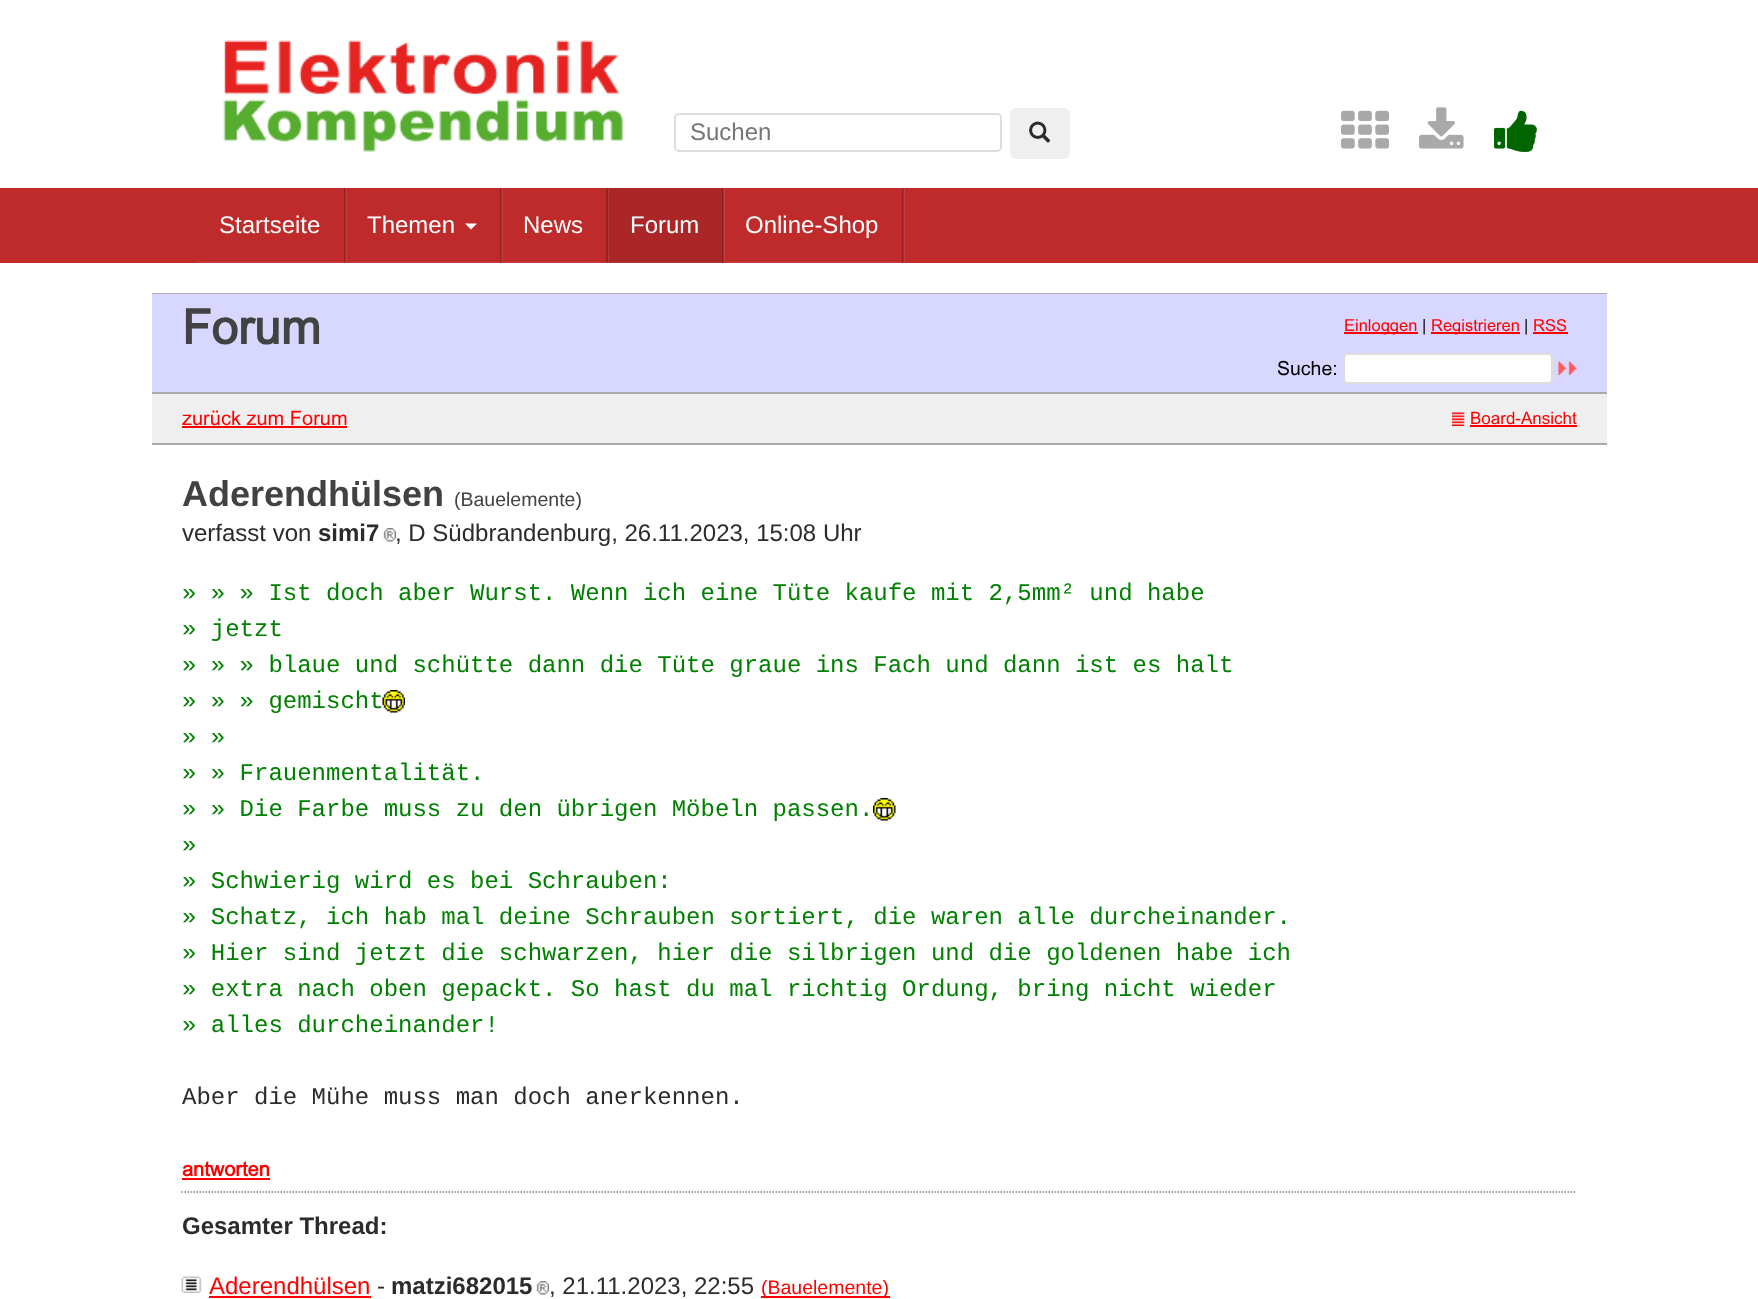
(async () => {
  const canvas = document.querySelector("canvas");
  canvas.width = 1758;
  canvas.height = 1299;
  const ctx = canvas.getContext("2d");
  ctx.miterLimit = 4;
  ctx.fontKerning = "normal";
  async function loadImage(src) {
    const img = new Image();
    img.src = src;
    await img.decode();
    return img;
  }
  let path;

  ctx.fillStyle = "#ffffff";
  ctx.fillRect(0, 0, 1758, 1299);
  ctx.drawImage(await loadImage("img/1.png"), 223, 40, 400, 112);
  ctx.beginPath();
  ctx.roundRect(675, 114, 326, 37, 4);
  ctx.strokeStyle = "#dddddd";
  ctx.lineWidth = 2;
  ctx.stroke();
  ctx.fillStyle = "#efefef";
  ctx.beginPath();
  ctx.roundRect(1010, 108, 60, 51, 6);
  ctx.fill();
  ctx.drawImage(await loadImage("img/2.png"), 1029, 121, 22, 22);
  ctx.drawImage(await loadImage("img/3.png"), 1341, 110, 48, 39);
  ctx.drawImage(await loadImage("img/4.png"), 1419, 107, 45, 42);
  ctx.drawImage(await loadImage("img/5.png"), 1494, 110, 43, 42);
  ctx.fillStyle = "#bf2b2b";
  ctx.fillRect(0, 188, 1758, 75);
  ctx.fillStyle = "#c54040";
  path = new Path2D("M198 262V263H347V188H345V262Z");
  ctx.fill(path);
  ctx.fillStyle = "rgba(0, 0, 0, 0.2)";
  ctx.fillRect(344, 188, 2, 75);
  ctx.fillStyle = "#c54040";
  path = new Path2D("M347 262V263H503V188H501V262Z");
  ctx.fill(path);
  ctx.fillStyle = "rgba(0, 0, 0, 0.2)";
  ctx.fillRect(500, 188, 2, 75);
  ctx.fillStyle = "#ffffff";
  path = new Path2D("M465 223.5H477L471 229.5Z");
  ctx.fill(path);
  ctx.fillStyle = "#c54040";
  path = new Path2D("M503 262V263H609V188H608V262Z");
  ctx.fill(path);
  ctx.fillStyle = "rgba(0, 0, 0, 0.2)";
  ctx.fillRect(606, 188, 2, 75);
  ctx.fillStyle = "#c54040";
  path = new Path2D("M609 262V263H725V188H723V262Z");
  ctx.fill(path);
  ctx.fillStyle = "rgba(0, 0, 0, 0.1)";
  ctx.fillRect(608, 188, 115, 75);
  ctx.fillStyle = "rgba(0, 0, 0, 0.2)";
  ctx.fillRect(722, 188, 2, 75);
  ctx.fillStyle = "#c54040";
  path = new Path2D("M725 262V263H905V188H903V262Z");
  ctx.fill(path);
  for (const [x, y, w, h, color] of [
    [902, 188, 2, 75, "rgba(0, 0, 0, 0.2)"],
    [152, 293, 1455, 1, "#aaaaaa"],
    [152, 294, 1455, 98, "#d7d7ff"],
    [1344, 332, 74, 2, "#ff0000"],
    [1431, 332, 89, 2, "#ff0000"],
    [1533, 332, 35, 2, "#ff0000"],
  ]) {
    ctx.fillStyle = color;
    ctx.fillRect(x, y, w, h);
  }
  ctx.fillStyle = "#ffffff";
  ctx.beginPath();
  ctx.roundRect(1344, 354, 208, 29, 4);
  ctx.fill();
  ctx.stroke();
  ctx.drawImage(await loadImage("img/6.png"), 1558, 361, 19, 14);
  for (const [x, y, w, h, color] of [
    [152, 394, 1455, 49, "#efefef"],
    [152, 392, 1455, 2, "#aaaaaa"],
    [182, 426, 165, 2, "#ff0000"],
  ]) {
    ctx.fillStyle = color;
    ctx.fillRect(x, y, w, h);
  }
  ctx.drawImage(await loadImage("img/7.png"), 1452, 412, 13, 14);
  ctx.fillRect(1470, 425, 107, 2);
  ctx.fillStyle = "#aaaaaa";
  ctx.fillRect(152, 443, 1455, 2);
  ctx.drawImage(await loadImage("img/8.png"), 383, 528, 13, 14);
  ctx.drawImage(await loadImage("img/9.png"), 382, 690, 23, 23);
  ctx.drawImage(await loadImage("img/10.png"), 873, 798, 23, 23);
  ctx.fillStyle = "#ff0000";
  ctx.fillRect(182, 1178, 88, 2);
  path = new Path2D("M181.5 1192H1576.5");
  ctx.strokeStyle = "#808080";
  ctx.lineWidth = 1.5;
  ctx.setLineDash([1.5, 1.5]);
  ctx.stroke(path);
  ctx.drawImage(await loadImage("img/11.png"), 181, 1276, 21, 17);
  ctx.fillRect(209, 1296, 162, 2);
  ctx.drawImage(await loadImage("img/8.png"), 536, 1281, 13, 14);
  ctx.fillRect(761, 1296, 129, 2);
  ctx.font = "24px Liberation Sans";
  ctx.fillStyle = "#757575";
  ctx.fillText("Suchen", 690, 140);
  ctx.fillStyle = "#ffffff";
  for (const [text, x, y] of [
    ["Startseite", 219, 233],
    ["Themen", 367, 233],
    ["News", 523, 233],
    ["Forum", 630, 233],
    ["Online-Shop", 745, 233],
  ]) {
    ctx.fillText(text, x, y);
  }
  ctx.font = "bold 48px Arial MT";
  ctx.fillStyle = "#424242";
  ctx.fillText("Forum", 182, 344);
  ctx.font = "16.5px Arial MT";
  ctx.fillStyle = "#ff0000";
  ctx.fillText("Einloggen", 1344, 331);
  ctx.fillStyle = "#000000";
  ctx.fillText("|", 1422, 331);
  ctx.fillStyle = "#ff0000";
  ctx.fillText("Registrieren", 1431, 331);
  ctx.fillStyle = "#000000";
  ctx.fillText("|", 1524, 331);
  ctx.fillStyle = "#ff0000";
  ctx.fillText("RSS", 1533, 331);
  ctx.font = "19.5px Arial MT";
  ctx.fillStyle = "#000000";
  ctx.fillText("Suche:", 1277, 375);
  ctx.font = "20px Arial MT";
  ctx.fillStyle = "#ff0000";
  ctx.fillText("zurück zum Forum", 182, 425);
  ctx.font = "17px Arial MT";
  ctx.fillText("Board-Ansicht", 1470, 424);
  ctx.font = "bold 36px Liberation Sans";
  ctx.fillStyle = "#424242";
  ctx.fillText("Aderendhülsen", 182, 506);
  ctx.font = "19.5px Liberation Sans";
  ctx.fillText("(Bauelemente)", 454, 506);
  ctx.font = "24px Liberation Sans";
  ctx.fillStyle = "#2b2b2b";
  ctx.fillText("verfasst von", 182, 541);
  ctx.font = "bold 24px Liberation Sans";
  ctx.fillText("simi7", 318, 541);
  ctx.font = "24px Liberation Sans";
  ctx.fillText(", D Südbrandenburg, 26.11.2023, 15:08 Uhr", 395, 541);
  ctx.font = "24px Liberation Mono";
  ctx.fillStyle = "#008000";
  for (const [text, x, y] of [
    ["» » » Ist doch aber Wurst. Wenn ich eine Tüte kaufe mit 2,5mm² und habe", 182, 600],
    ["» jetzt", 182, 636],
    ["» » » blaue und schütte dann die Tüte graue ins Fach und dann ist es halt", 182, 672],
    ["» » » gemischt", 182, 708],
    ["» »", 182, 744],
    ["» » Frauenmentalität.", 182, 780],
    ["» » Die Farbe muss zu den übrigen Möbeln passen.", 182, 816],
    ["»", 182, 852],
    ["» Schwierig wird es bei Schrauben:", 182, 888],
    ["» Schatz, ich hab mal deine Schrauben sortiert, die waren alle durcheinander.", 182, 924],
    ["» Hier sind jetzt die schwarzen, hier die silbrigen und die goldenen habe ich", 182, 960],
    ["» extra nach oben gepackt. So hast du mal richtig Ordung, bring nicht wieder", 182, 996],
    ["» alles durcheinander!", 182, 1032],
  ]) {
    ctx.fillText(text, x, y);
  }
  ctx.fillStyle = "#2b2b2b";
  ctx.fillText("Aber die Mühe muss man doch anerkennen.", 182, 1104);
  ctx.font = "bold 20px Arial MT";
  ctx.fillStyle = "#ff0000";
  ctx.fillText("antworten", 182, 1176);
  ctx.font = "bold 24px Liberation Sans";
  ctx.fillStyle = "#2b2b2b";
  ctx.fillText("Gesamter Thread:", 182, 1234);
  ctx.font = "24px Liberation Sans";
  ctx.fillStyle = "#ff0000";
  ctx.fillText("Aderendhülsen", 209, 1294);
  ctx.fillStyle = "#2b2b2b";
  ctx.fillText("-", 377, 1294);
  ctx.font = "bold 24px Liberation Sans";
  ctx.fillText("matzi682015", 391, 1294);
  ctx.font = "24px Liberation Sans";
  ctx.fillText(", 21.11.2023, 22:55", 549, 1294);
  ctx.font = "19.5px Liberation Sans";
  ctx.fillStyle = "#ff0000";
  ctx.fillText("(Bauelemente)", 761, 1294);
})();
